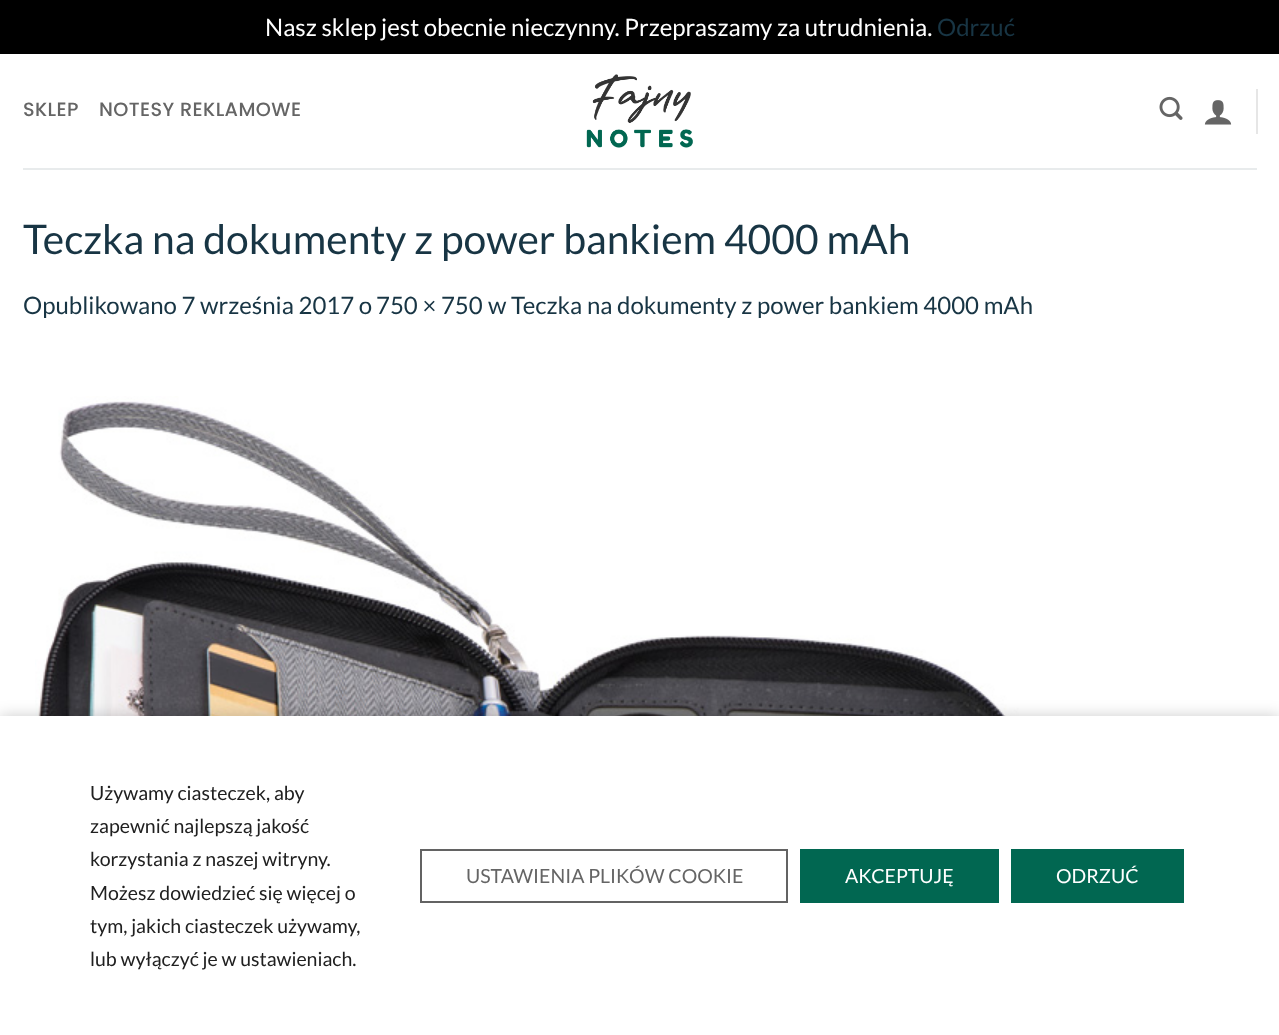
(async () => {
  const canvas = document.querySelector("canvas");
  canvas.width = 1279;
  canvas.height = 1035;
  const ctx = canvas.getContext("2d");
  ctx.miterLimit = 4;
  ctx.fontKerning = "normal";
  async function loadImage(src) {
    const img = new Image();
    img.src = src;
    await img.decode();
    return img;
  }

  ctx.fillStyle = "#000000";
  ctx.fillRect(0, 0, 1279, 1035);
  ctx.fillStyle = "#ffffff";
  ctx.fillRect(0, 54, 1279, 662);
  ctx.drawImage(await loadImage("img/1.png"), 586, 74, 107, 74);
  ctx.drawImage(await loadImage("img/2.png"), 1159, 96, 24, 24);
  ctx.drawImage(await loadImage("img/3.png"), 1204, 100, 28, 25);
  ctx.fillStyle = "#e6e6e6";
  ctx.fillRect(1256, 89, 2, 45);
  ctx.fillStyle = "#e8ebec";
  ctx.fillRect(23, 168, 1234, 2);
  ctx.drawImage(await loadImage("img/4.png"), 35, 396, 1103, 320);
  ctx.fillStyle = "rgba(0, 0, 0, 0.2)";
  ctx.filter = "blur(7.5px)";
  ctx.beginPath();
  ctx.rect(0, 716, 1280, 319);
  ctx.fill();
  ctx.filter = "none";
  ctx.fillStyle = "#ffffff";
  ctx.fillRect(0, 716, 1279, 319);
  ctx.strokeStyle = "#636363";
  ctx.lineWidth = 2;
  ctx.strokeRect(421, 850, 366, 52);
  ctx.fillStyle = "#016751";
  ctx.fillRect(800, 849, 199, 54);
  ctx.fillRect(1011, 849, 173, 54);
  ctx.font = "24px Lato";
  ctx.fillStyle = "#ffffff";
  ctx.fillText("Nasz sklep jest obecnie nieczynny. Przepraszamy za utrudnienia.", 265, 36);
  ctx.fillStyle = "#183544";
  ctx.fillText("Odrzuć", 937, 36);
  ctx.letterSpacing = "0.4px";
  ctx.font = "500 19.25px Poppins";
  ctx.fillStyle = "#656565";
  ctx.fillText("SKLEP", 23, 116);
  ctx.fillText("NOTESY REKLAMOWE", 99, 116);
  ctx.letterSpacing = "0px";
  ctx.font = "40.8px Lato";
  ctx.fillStyle = "#183544";
  ctx.fillText("Teczka na dokumenty z power bankiem 4000 mAh", 23, 254);
  ctx.font = "24px Lato";
  for (const [text, x, y] of [
    ["Opublikowano 7 września 2017 o", 23, 314],
    ["750 × 750", 376, 314],
    ["w", 488, 314],
    ["Teczka na dokumenty z power bankiem 4000 mAh", 511, 314],
  ]) {
    ctx.fillText(text, x, y);
  }
  ctx.font = "19.5px Lato";
  ctx.fillStyle = "#202020";
  for (const [text, x, y] of [
    ["Używamy ciasteczek, aby", 90, 800],
    ["zapewnić najlepszą jakość", 90, 833],
    ["korzystania z naszej witryny.", 90, 866],
    ["Możesz dowiedzieć się więcej o", 90, 900],
    ["tym, jakich ciasteczek używamy,", 90, 933],
    ["lub wyłączyć je w ustawieniach.", 90, 966],
  ]) {
    ctx.fillText(text, x, y);
  }
  ctx.fillStyle = "#656565";
  ctx.fillText("USTAWIENIA PLIKÓW COOKIE", 466, 883);
  ctx.fillStyle = "#ffffff";
  ctx.fillText("AKCEPTUJĘ", 845, 883);
  ctx.fillText("ODRZUĆ", 1056, 883);
})();
